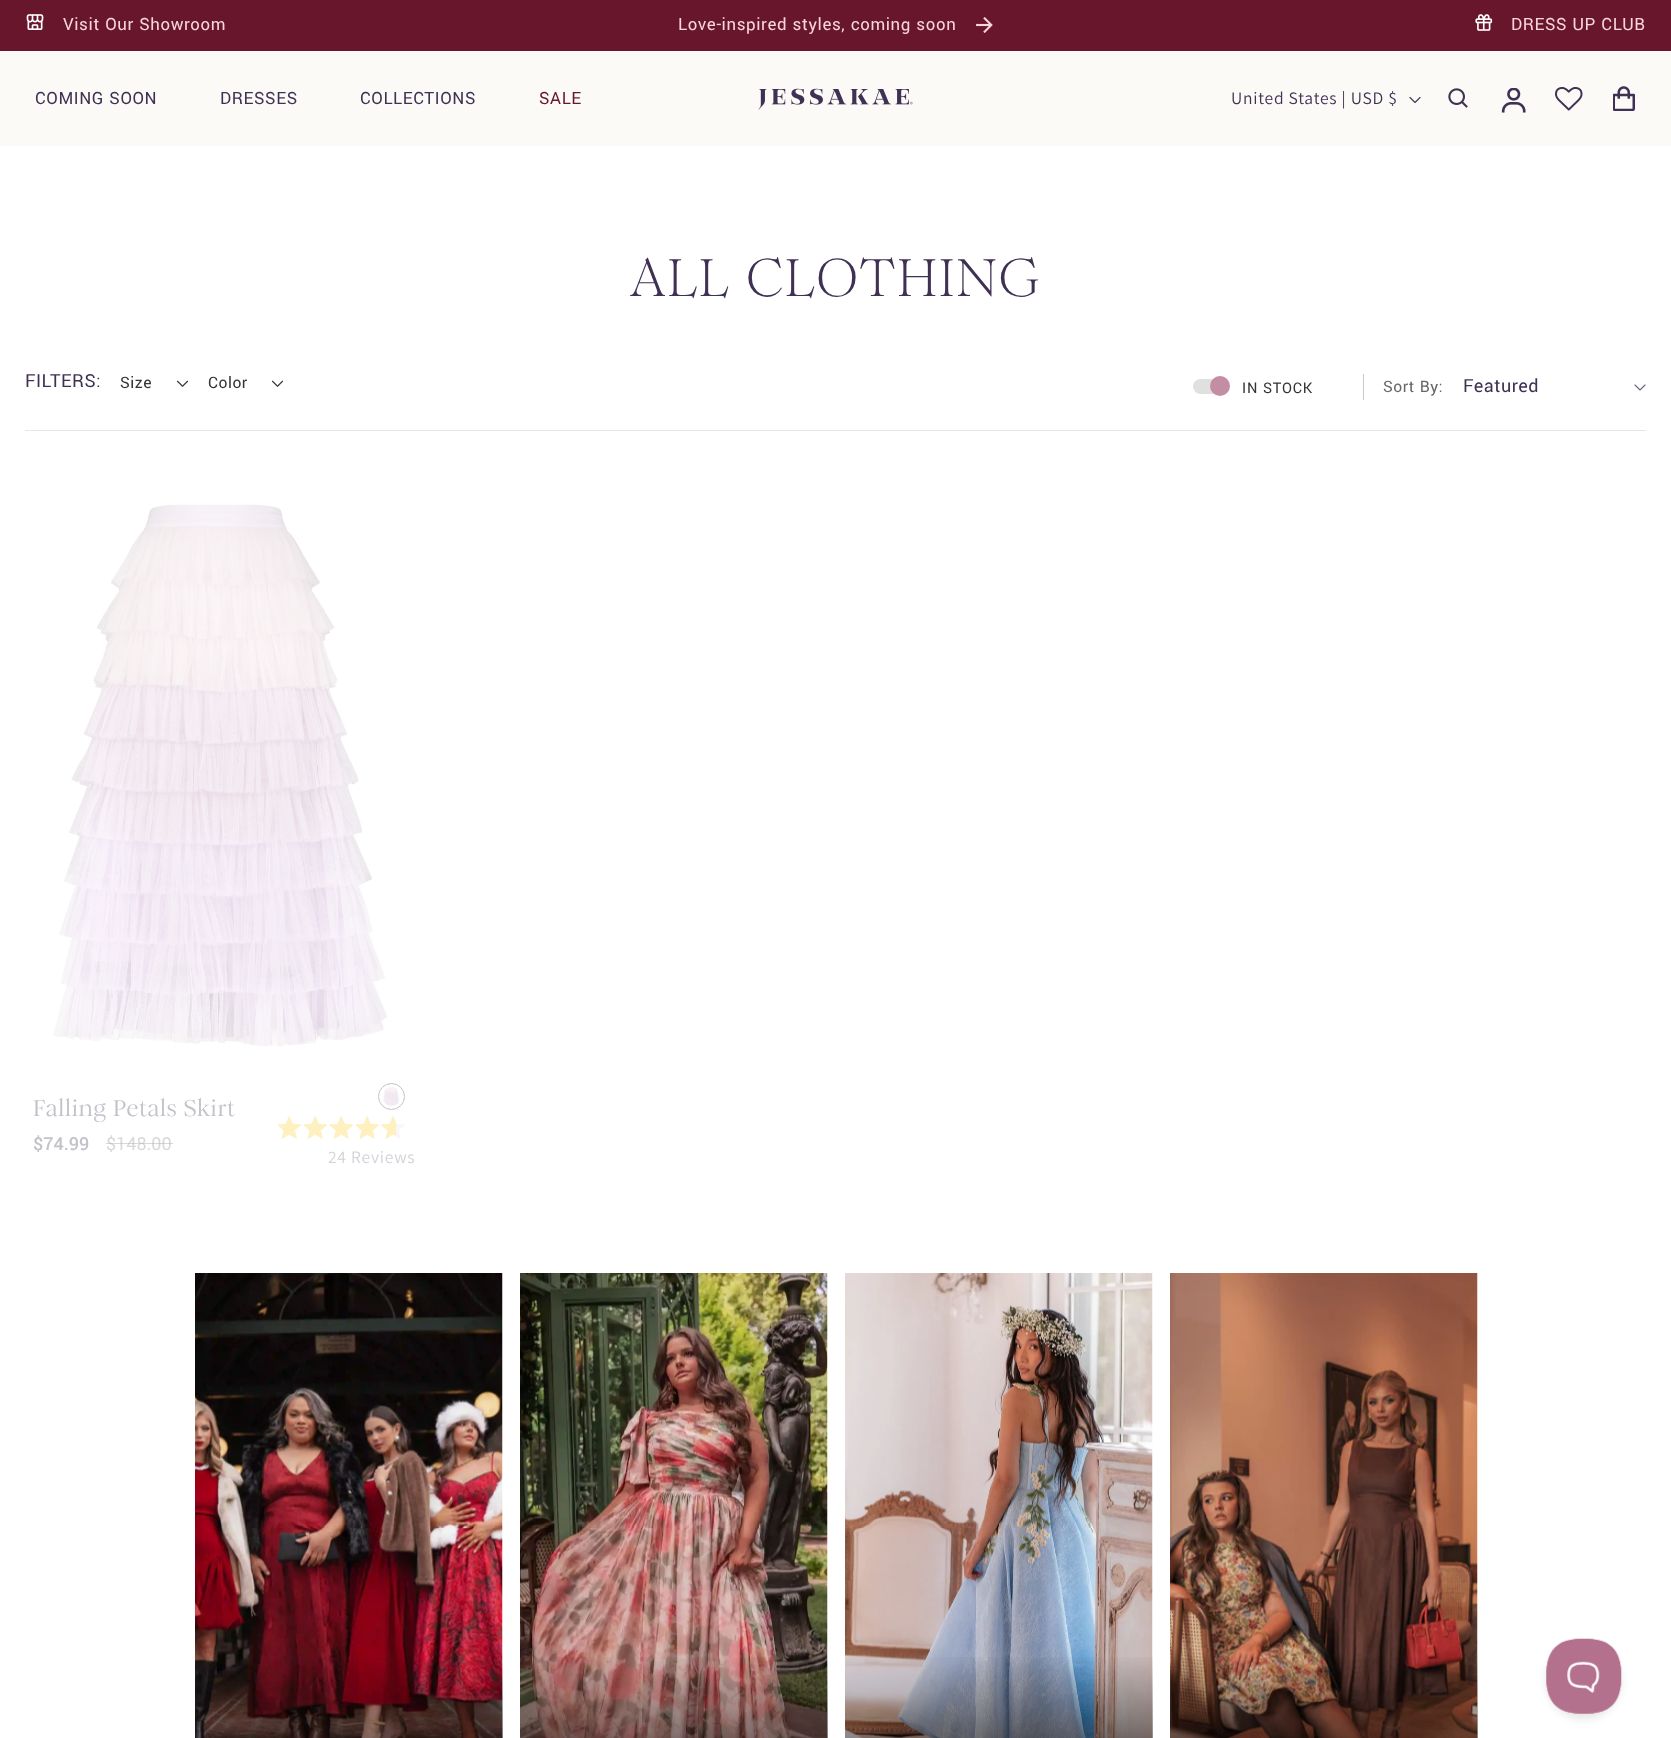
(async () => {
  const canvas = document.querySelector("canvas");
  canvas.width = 1671;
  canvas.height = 1738;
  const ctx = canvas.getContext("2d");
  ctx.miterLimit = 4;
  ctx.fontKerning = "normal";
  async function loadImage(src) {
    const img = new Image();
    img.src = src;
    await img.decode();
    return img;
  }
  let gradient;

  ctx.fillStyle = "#ffffff";
  ctx.fillRect(0, 0, 1671, 1738);
  ctx.fillStyle = "#68162c";
  ctx.fillRect(0, 0, 1671, 50);
  ctx.fillStyle = "#65182f";
  ctx.fillRect(0, 50, 1671, 1);
  ctx.drawImage(await loadImage("img/1.png"), 26, 14, 18, 16);
  ctx.drawImage(await loadImage("img/2.png"), 976, 17, 17, 16);
  ctx.drawImage(await loadImage("img/3.png"), 1475, 14, 18, 17);
  ctx.fillStyle = "#fcfaf7";
  ctx.fillRect(0, 51, 1671, 95);
  ctx.drawImage(await loadImage("img/4.png"), 758, 88, 155, 22);
  ctx.drawImage(await loadImage("img/5.png"), 1409, 97, 12, 6);
  ctx.drawImage(await loadImage("img/6.png"), 1448, 88, 20, 20);
  ctx.drawImage(await loadImage("img/7.png"), 1501, 88, 25, 25);
  ctx.drawImage(await loadImage("img/8.png"), 1555, 86, 28, 25);
  ctx.drawImage(await loadImage("img/9.png"), 1613, 86, 22, 25);
  ctx.fillStyle = "#e6e6e6";
  ctx.fillRect(25, 430, 1621, 1);
  ctx.drawImage(await loadImage("img/10.png"), 176, 380, 13, 7);
  ctx.drawImage(await loadImage("img/10.png"), 271, 380, 13, 7);
  ctx.fillStyle = "#e0e0e0";
  ctx.beginPath();
  ctx.roundRect(1193, 379, 35, 15, 7.5);
  ctx.fill();
  ctx.fillStyle = "#c38da4";
  ctx.beginPath();
  ctx.arc(1220, 386, 10, 0, Math.PI * 2);
  ctx.fill();
  ctx.fillStyle = "#cccccc";
  ctx.fillRect(1363, 374, 1, 26);
  ctx.drawImage(await loadImage("img/11.png"), 1634, 384, 12, 7);
  ctx.drawImage(await loadImage("img/12.png"), 53, 504, 335, 543);
  ctx.drawImage(await loadImage("img/13.png"), 382, 1083, 18, 26);
  ctx.beginPath();
  ctx.arc(391.5, 1096.5, 12, 0, Math.PI * 2);
  ctx.strokeStyle = "#f3f3f3";
  ctx.stroke();
  ctx.beginPath();
  ctx.arc(391.5, 1096.5, 11, 0, Math.PI * 2);
  ctx.strokeStyle = "#ffffff";
  ctx.lineWidth = 3;
  ctx.stroke();
  ctx.beginPath();
  ctx.arc(391.5, 1096.5, 13, 0, Math.PI * 2);
  ctx.strokeStyle = "#c5c1cb";
  ctx.lineWidth = 1;
  ctx.stroke();
  ctx.drawImage(await loadImage("img/14.png"), 277, 1116, 128, 23);
  ctx.drawImage(await loadImage("img/15.png"), 278, 1116, 118, 23);
  ctx.drawImage(await loadImage("img/16.png"), 195, 1273, 308, 465);
  gradient = ctx.createLinearGradient(349, 1273, 349, 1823);
  gradient.addColorStop(0.69, "rgba(0, 0, 0, 0)");
  gradient.addColorStop(1, "rgba(0, 0, 0, 0.8)");
  ctx.fillStyle = gradient;
  ctx.fillRect(195, 1657, 308, 81);
  ctx.drawImage(await loadImage("img/17.png"), 520, 1273, 308, 465);
  gradient = ctx.createLinearGradient(674, 1273, 674, 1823);
  gradient.addColorStop(0.69, "rgba(0, 0, 0, 0)");
  gradient.addColorStop(1, "rgba(0, 0, 0, 0.8)");
  ctx.fillStyle = gradient;
  ctx.fillRect(520, 1657, 308, 81);
  ctx.drawImage(await loadImage("img/18.png"), 845, 1273, 308, 465);
  gradient = ctx.createLinearGradient(999, 1273, 999, 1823);
  gradient.addColorStop(0.69, "rgba(0, 0, 0, 0)");
  gradient.addColorStop(1, "rgba(0, 0, 0, 0.8)");
  ctx.fillStyle = gradient;
  ctx.fillRect(845, 1657, 308, 81);
  ctx.drawImage(await loadImage("img/19.png"), 1170, 1273, 308, 465);
  gradient = ctx.createLinearGradient(1324, 1273, 1324, 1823);
  gradient.addColorStop(0.69, "rgba(0, 0, 0, 0)");
  gradient.addColorStop(1, "rgba(0, 0, 0, 0.8)");
  ctx.fillStyle = gradient;
  ctx.fillRect(1170, 1657, 308, 81);
  ctx.fillStyle = "rgba(0, 0, 0, 0.1)";
  ctx.filter = "blur(4.5px)";
  ctx.beginPath();
  ctx.roundRect(1546, 1644, 75, 75, 37.5);
  ctx.fill();
  ctx.filter = "none";
  ctx.drawImage(await loadImage("img/20.png"), 1546, 1638, 76, 76);
  ctx.letterSpacing = "0.6px";
  ctx.font = "18.75px Yantramanav";
  ctx.fillStyle = "#fad7d7";
  for (const [text, x, y] of [
    ["Visit Our Showroom", 63, 30],
    ["Love-inspired styles, coming soon", 678, 30],
    ["DRESS UP CLUB", 1511, 30],
  ]) {
    ctx.fillText(text, x, y);
  }
  ctx.fillStyle = "#3f3153";
  for (const [text, x, y] of [
    ["COMING SOON", 35, 104],
    ["DRESSES", 220, 104],
    ["COLLECTIONS", 360, 104],
  ]) {
    ctx.fillText(text, x, y);
  }
  ctx.fillStyle = "#68162c";
  ctx.fillText("SALE", 539, 104);
  ctx.letterSpacing = "0.75px";
  ctx.font = "17.5px Assistant";
  ctx.fillStyle = "#3f3153";
  ctx.fillText("United States | USD $", 1231, 104);
  ctx.letterSpacing = "2.5px";
  ctx.font = "52.5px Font";
  ctx.fillText("ALL CLOTHING", 630, 296);
  ctx.letterSpacing = "0.5px";
  ctx.font = "20px Yantramanav";
  ctx.fillText("FILTERS:", 25, 387);
  ctx.font = "17.5px Yantramanav";
  ctx.fillStyle = "#333333";
  ctx.fillText("Size", 120, 388);
  ctx.fillText("Color", 208, 388);
  ctx.letterSpacing = "0.75px";
  ctx.font = "16.25px Yantramanav";
  ctx.fillText("IN STOCK", 1242, 393);
  ctx.letterSpacing = "0.5px";
  ctx.font = "17.5px Yantramanav";
  ctx.fillStyle = "#666666";
  ctx.fillText("Sort By:", 1383, 392);
  ctx.font = "20px Yantramanav";
  ctx.fillStyle = "#3f3153";
  ctx.fillText("Featured", 1463, 392);
  ctx.letterSpacing = "0.75px";
  ctx.font = "500 22.5px Font";
  ctx.fillStyle = "#c5c1cb";
  ctx.fillText("Falling Petals Skirt", 33, 1116);
  ctx.letterSpacing = "0px";
  ctx.font = "500 20px Yantramanav";
  ctx.fillText("$74.99", 33, 1150);
  ctx.font = "20px Yantramanav";
  ctx.fillStyle = "#d9d9d9";
  ctx.fillText("$148.00", 106, 1150);
  ctx.fillStyle = "rgba(179, 179, 179, 0.5)";
  ctx.fillRect(106, 1143, 67, 1);
  ctx.letterSpacing = "0.75px";
  ctx.font = "17.5px Assistant";
  ctx.fillStyle = "#d4d1d8";
  ctx.fillText("24 Reviews", 328, 1163);
})();
